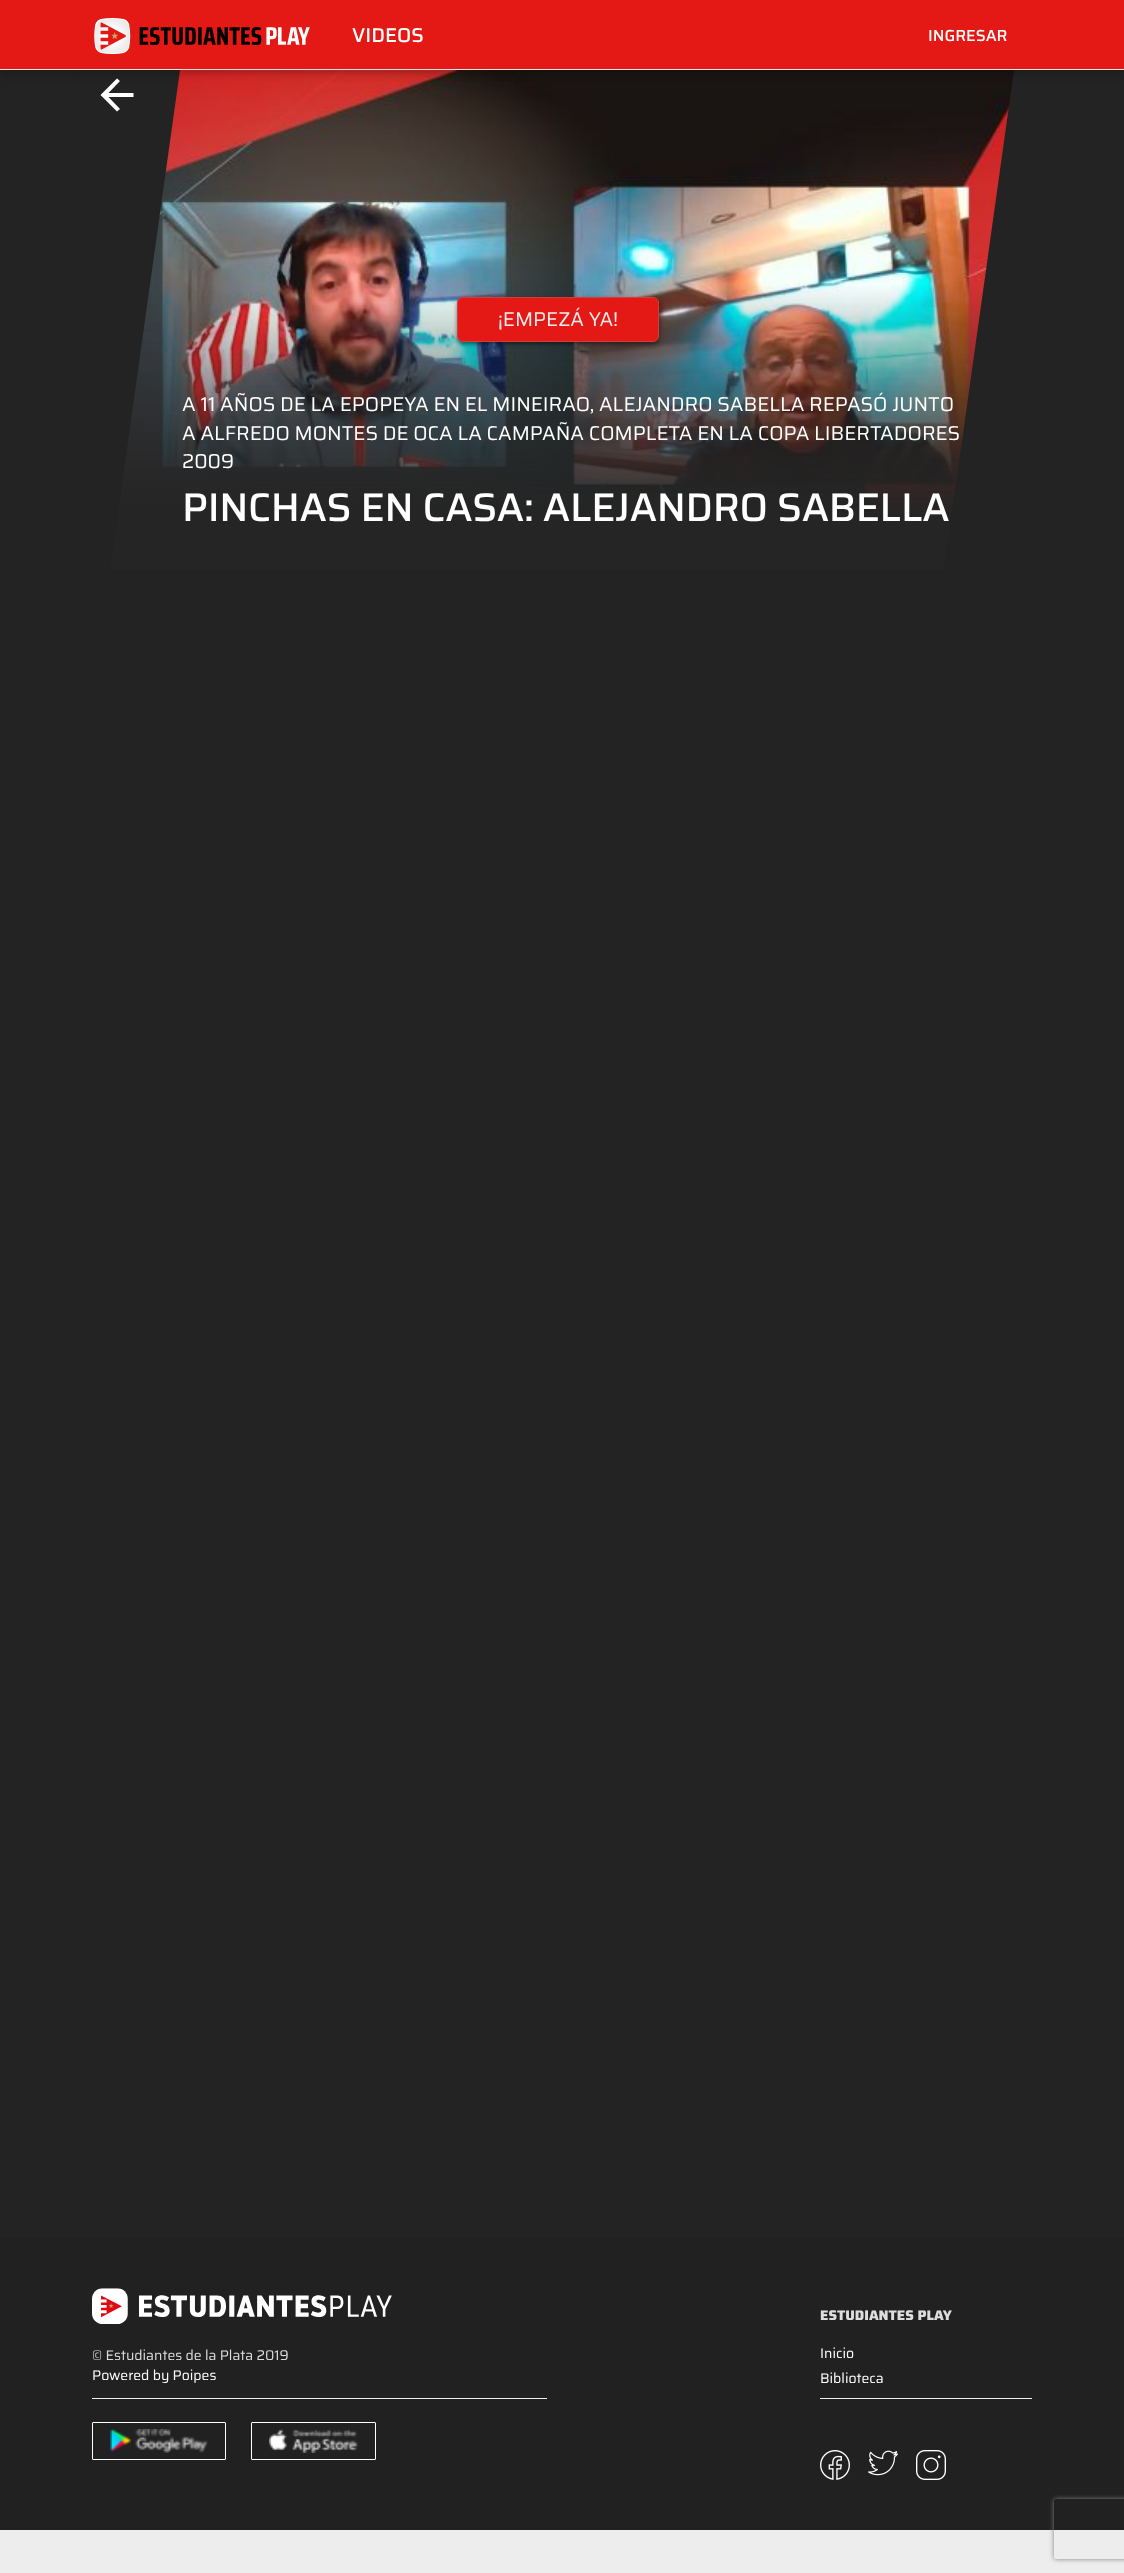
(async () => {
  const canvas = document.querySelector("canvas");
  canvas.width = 1124;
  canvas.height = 2573;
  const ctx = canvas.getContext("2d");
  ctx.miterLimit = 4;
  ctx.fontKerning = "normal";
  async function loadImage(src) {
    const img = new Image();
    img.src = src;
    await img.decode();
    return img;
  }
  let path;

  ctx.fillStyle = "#ededed";
  ctx.fillRect(0, 0, 1124, 2573);
  ctx.fillStyle = "#232323";
  ctx.fillRect(0, 70, 1124, 2168);
  ctx.drawImage(await loadImage("img/2.png"), 110, 70, 904, 500);
  path = new Path2D("M77 70H180L110 570H7Z");
  ctx.fill(path);
  ctx.fillStyle = "rgba(0, 0, 0, 0.5)";
  ctx.filter = "blur(2px)";
  ctx.beginPath();
  ctx.roundRect(457, 299, 202, 45, 6);
  ctx.fill();
  ctx.filter = "none";
  ctx.fillStyle = "#e41815";
  ctx.beginPath();
  ctx.roundRect(457.5, 297.5, 201, 44, 5.5);
  ctx.fill();
  ctx.strokeStyle = "#d43f3a";
  ctx.stroke();
  ctx.fillStyle = "#212121";
  ctx.fillRect(0, 2238, 1124, 292);
  ctx.drawImage(await loadImage("img/3.png"), 92, 2288, 300, 36);
  ctx.fillStyle = "#ededed";
  ctx.fillRect(92, 2398, 455, 1);
  ctx.beginPath();
  ctx.roundRect(92.5, 2422.5, 133, 37, 0.5);
  ctx.strokeStyle = "#ffffff";
  ctx.stroke();
  ctx.drawImage(await loadImage("img/4.png"), 110, 2429, 98, 24);
  ctx.beginPath();
  ctx.roundRect(251.5, 2422.5, 124, 37, 0.5);
  ctx.stroke();
  ctx.drawImage(await loadImage("img/5.png"), 269, 2429, 89, 24);
  ctx.fillRect(820, 2398, 212, 1);
  ctx.drawImage(await loadImage("img/6.png"), 820, 2450, 30, 30);
  ctx.drawImage(await loadImage("img/7.png"), 868, 2450, 30, 26);
  ctx.drawImage(await loadImage("img/8.png"), 916, 2450, 30, 30);
  ctx.save();
  path = new Path2D("M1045 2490H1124V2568H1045ZM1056 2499H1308C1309 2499 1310 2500 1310 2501V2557C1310 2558 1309 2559 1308 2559H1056C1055 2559 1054 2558 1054 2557V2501C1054 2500 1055 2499 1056 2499Z");
  ctx.clip(path, "evenodd");
  ctx.fillStyle = "#808080";
  ctx.filter = "blur(2.5px)";
  ctx.beginPath();
  ctx.roundRect(1054, 2499, 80, 60, 2);
  ctx.fill();
  ctx.filter = "none";
  ctx.restore();
  ctx.font = "20px Saira";
  ctx.fillText("¡EMPEZÁ YA!", 498, 326);
  ctx.fillStyle = "#ffffff";
  for (const [text, x, y] of [
    ["A 11 AÑOS DE LA EPOPEYA EN EL MINEIRAO, ALEJANDRO SABELLA REPASÓ JUNTO", 182, 411],
    ["A ALFREDO MONTES DE OCA LA CAMPAÑA COMPLETA EN LA COPA LIBERTADORES", 182, 440],
    ["2009", 182, 468],
  ]) {
    ctx.fillText(text, x, y);
  }
  ctx.letterSpacing = "-0.3px";
  ctx.font = "500 40px Saira";
  ctx.fillText("PINCHAS EN CASA: ALEJANDRO SABELLA", 182, 521);
  ctx.fillStyle = "#232323";
  path = new Path2D("M1014 70H1117L1047 570H944Z");
  ctx.fill(path);
  ctx.fillStyle = "rgba(0, 0, 0, 0.2)";
  ctx.filter = "blur(3.5px)";
  ctx.beginPath();
  ctx.rect(0, 4, 1124, 70);
  ctx.fill();
  ctx.filter = "none";
  ctx.fillStyle = "#ffffff";
  path = new Path2D("M133.5 93V97H108.5L120 109L117 111.5L100.5 95L117 78.5L120 81L108.5 93Z");
  ctx.fill(path);
  ctx.fillStyle = "#e41815";
  ctx.fillRect(0, 0, 1124, 69);
  ctx.letterSpacing = "0px";
  ctx.font = "500 16px Saira";
  ctx.fillStyle = "#ffffff";
  ctx.fillText("INGRESAR", 928, 41);
  ctx.font = "500 20px Saira";
  ctx.fillText("VIDEOS", 352, 42);
  ctx.drawImage(await loadImage("img/1.png"), 94, 18, 216, 36);
  ctx.fillStyle = "#e6e6e6";
  ctx.fillRect(0, 69, 1124, 1);
  ctx.font = "14px Saira";
  ctx.fillStyle = "#dddddd";
  ctx.fillText("© Estudiantes de la Plata 2019", 92, 2360);
  ctx.fillStyle = "#ffffff";
  ctx.fillText("Powered by Poipes", 92, 2380);
  ctx.font = "800 14px Saira";
  ctx.fillStyle = "#dddddd";
  ctx.fillText("ESTUDIANTES PLAY", 820, 2320);
  ctx.font = "14px Saira";
  ctx.fillStyle = "#ffffff";
  ctx.fillText("Inicio", 820, 2358);
  ctx.fillText("Biblioteca", 820, 2383);
})();
